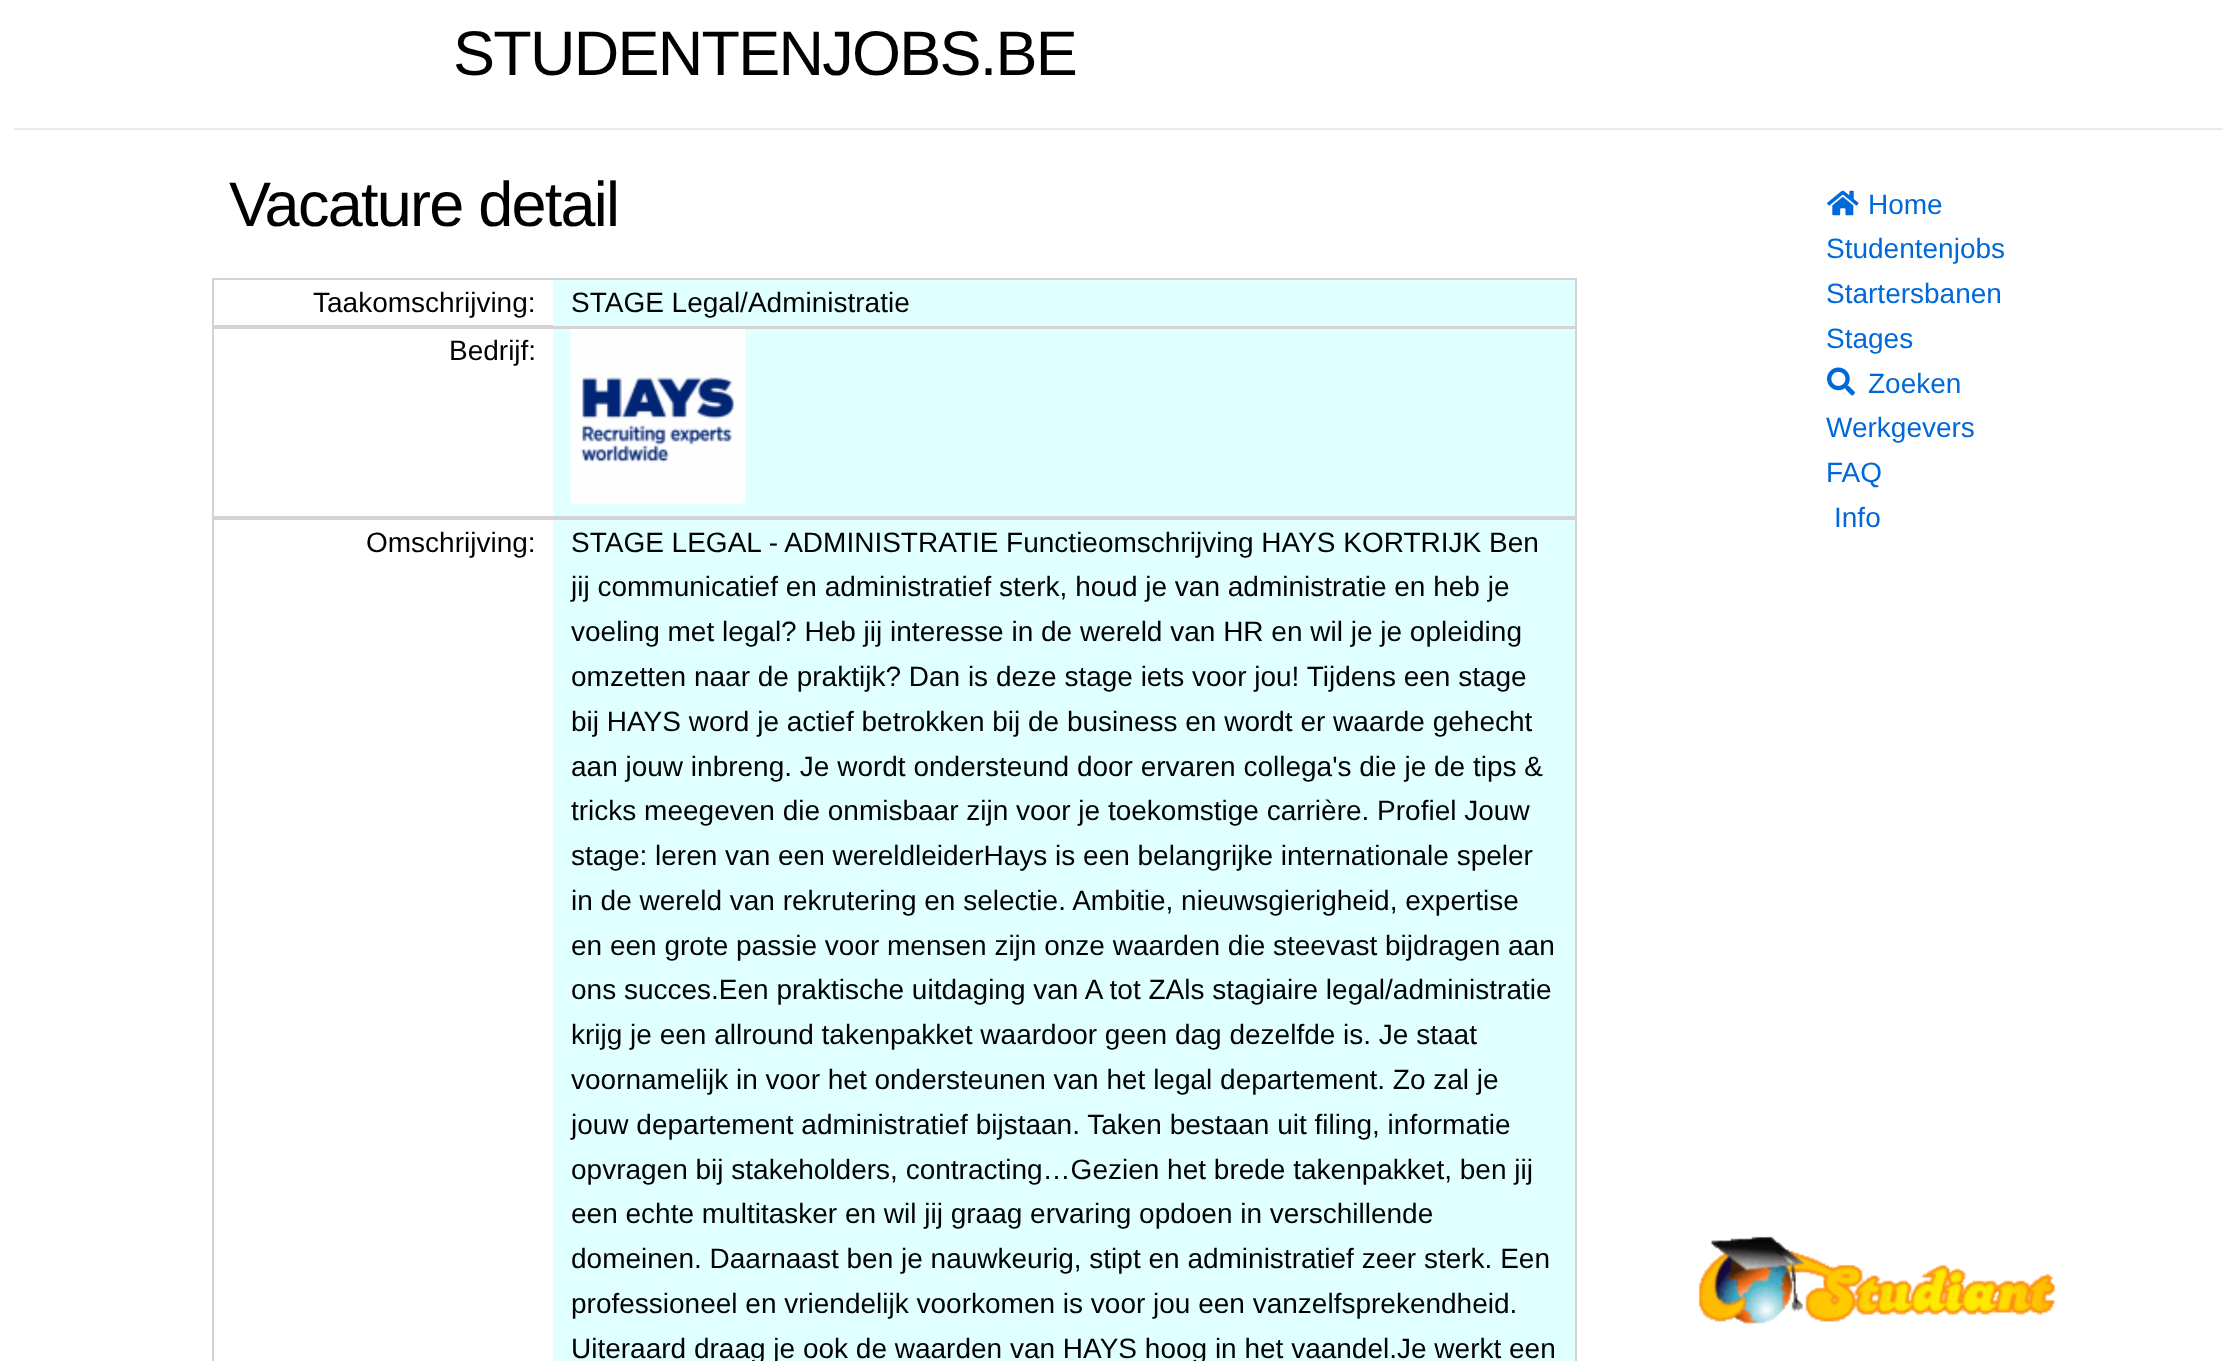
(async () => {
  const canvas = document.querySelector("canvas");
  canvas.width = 2236;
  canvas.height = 1361;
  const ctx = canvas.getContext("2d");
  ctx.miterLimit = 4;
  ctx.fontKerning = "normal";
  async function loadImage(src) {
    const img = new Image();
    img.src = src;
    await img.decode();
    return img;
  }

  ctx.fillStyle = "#ffffff";
  ctx.fillRect(0, 0, 2236, 1361);
  ctx.fillStyle = "#eaeaea";
  ctx.fillRect(14, 128, 2209, 2);
  ctx.strokeStyle = "#d3d3d3";
  ctx.lineWidth = 2;
  ctx.strokeRect(213, 279, 1363, 47);
  ctx.fillStyle = "#e0ffff";
  ctx.fillRect(553, 280, 1022, 46);
  ctx.strokeRect(213, 328, 1363, 189);
  ctx.fillRect(553, 329, 1022, 187);
  ctx.drawImage(await loadImage("img/1.png"), 570, 329, 176, 175);
  ctx.strokeRect(213, 519, 1363, 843);
  ctx.fillRect(553, 520, 1022, 841);
  ctx.drawImage(await loadImage("img/2.png"), 1827, 190, 32, 26);
  ctx.drawImage(await loadImage("img/3.png"), 1827, 367, 28, 29);
  ctx.drawImage(await loadImage("img/4.png"), 1698, 1236, 357, 88);
  ctx.letterSpacing = "-1.75px";
  ctx.font = "63px Liberation Sans";
  ctx.fillStyle = "#000000";
  ctx.fillText("STUDENTENJOBS.BE", 453, 75);
  ctx.fillText("Vacature detail", 229, 226);
  ctx.letterSpacing = "0px";
  ctx.font = "28px Liberation Sans";
  for (const [text, x, y] of [
    ["Taakomschrijving:", 313, 312],
    ["STAGE Legal/Administratie", 571, 312],
    ["Bedrijf:", 449, 360],
    ["Omschrijving:", 366, 552],
    ["STAGE LEGAL - ADMINISTRATIE Functieomschrijving HAYS KORTRIJK Ben", 571, 552],
    ["jij communicatief en administratief sterk, houd je van administratie en heb je", 571, 596],
    ["voeling met legal? Heb jij interesse in de wereld van HR en wil je je opleiding", 571, 641],
    ["omzetten naar de praktijk? Dan is deze stage iets voor jou! Tijdens een stage", 571, 686],
    ["bij HAYS word je actief betrokken bij de business en wordt er waarde gehecht", 571, 731],
    ["aan jouw inbreng. Je wordt ondersteund door ervaren collega's die je de tips &", 571, 776],
    ["tricks meegeven die onmisbaar zijn voor je toekomstige carrière. Profiel Jouw", 571, 820],
    ["stage: leren van een wereldleiderHays is een belangrijke internationale speler", 571, 865],
    ["in de wereld van rekrutering en selectie. Ambitie, nieuwsgierigheid, expertise", 571, 910],
    ["en een grote passie voor mensen zijn onze waarden die steevast bijdragen aan", 571, 955],
    ["ons succes.Een praktische uitdaging van A tot ZAls stagiaire legal/administratie", 571, 999],
    ["krijg je een allround takenpakket waardoor geen dag dezelfde is. Je staat", 571, 1044],
    ["voornamelijk in voor het ondersteunen van het legal departement. Zo zal je", 571, 1089],
    ["jouw departement administratief bijstaan. Taken bestaan uit filing, informatie", 571, 1134],
    ["opvragen bij stakeholders, contracting…Gezien het brede takenpakket, ben jij", 571, 1179],
    ["een echte multitasker en wil jij graag ervaring opdoen in verschillende", 571, 1223],
    ["domeinen. Daarnaast ben je nauwkeurig, stipt en administratief zeer sterk. Een", 571, 1268],
    ["professioneel en vriendelijk voorkomen is voor jou een vanzelfsprekendheid.", 571, 1313],
    ["Uiteraard draag je ook de waarden van HAYS hoog in het vaandel.Je werkt een", 571, 1358],
  ]) {
    ctx.fillText(text, x, y);
  }
  ctx.fillStyle = "#0069d9";
  for (const [text, x, y] of [
    ["Home", 1868, 214],
    ["Studentenjobs", 1826, 258],
    ["Startersbanen", 1826, 303],
    ["Stages", 1826, 348],
    ["Zoeken", 1868, 393],
    ["Werkgevers", 1826, 437],
    ["FAQ", 1826, 482],
    ["Info", 1834, 527],
  ]) {
    ctx.fillText(text, x, y);
  }
})();
